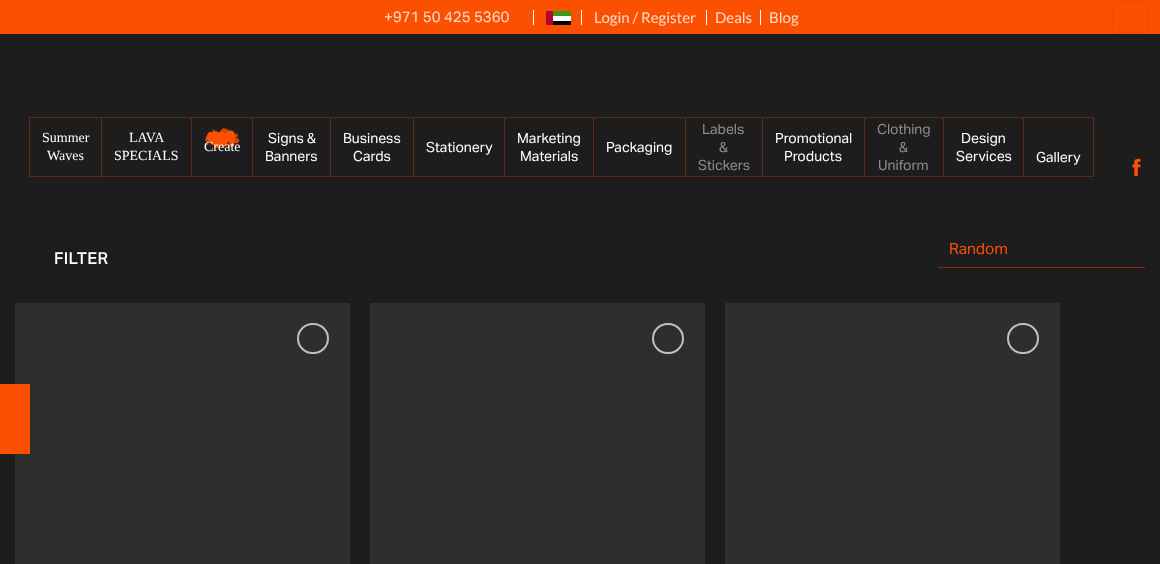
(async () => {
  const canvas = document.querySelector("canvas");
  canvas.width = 1160;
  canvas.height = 564;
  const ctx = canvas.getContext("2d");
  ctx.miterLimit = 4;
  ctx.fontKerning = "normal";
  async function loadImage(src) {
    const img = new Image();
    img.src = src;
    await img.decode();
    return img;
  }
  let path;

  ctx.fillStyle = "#1d1d1d";
  ctx.fillRect(0, 0, 1160, 564);
  for (const [x, y, w, h, color] of [
    [0, 0, 1160, 34, "#fc5001"],
    [546, 11, 7, 14, "#ba002f"],
    [553, 11, 18, 5, "#3e9914"],
    [553, 16, 18, 5, "#ffffff"],
    [553, 21, 18, 4, "#000000"],
    [533, 10, 1, 15, "#ffffff"],
    [581, 10, 1, 15, "#ffffff"],
    [706, 10, 1, 15, "#ffffff"],
    [760, 10, 1, 15, "#ffffff"],
  ]) {
    ctx.fillStyle = color;
    ctx.fillRect(x, y, w, h);
  }
  ctx.beginPath();
  ctx.roundRect(1112.5, 1.5, 35, 31, 2.5);
  ctx.strokeStyle = "#ef4c01";
  ctx.stroke();
  ctx.strokeStyle = "#5b2b15";
  ctx.strokeRect(29.5, 117.5, 72, 59);
  ctx.fillStyle = "#5b2b15";
  path = new Path2D("M102 117H192L191 118H102Z");
  ctx.fill(path);
  ctx.fillStyle = "rgba(252, 80, 1, 0.28)";
  path = new Path2D("M192 117V177L191 176V118Z");
  ctx.fill(path);
  path = new Path2D("M192 177H102V176H191Z");
  ctx.fill(path);
  ctx.drawImage(await loadImage("img/1.png"), 203, 127, 40, 26);
  ctx.fillStyle = "#5b2b15";
  path = new Path2D("M192 117H253L252 118H192Z");
  ctx.fill(path);
  ctx.fillStyle = "rgba(252, 80, 1, 0.28)";
  path = new Path2D("M253 117V177L252 176V118Z");
  ctx.fill(path);
  path = new Path2D("M253 177H192V176H252Z");
  ctx.fill(path);
  ctx.fillStyle = "#5b2b15";
  path = new Path2D("M253 117H331L330 118H253Z");
  ctx.fill(path);
  ctx.fillStyle = "rgba(252, 80, 1, 0.28)";
  path = new Path2D("M331 117V177L330 176V118Z");
  ctx.fill(path);
  path = new Path2D("M331 177H253V176H330Z");
  ctx.fill(path);
  ctx.fillStyle = "#5b2b15";
  path = new Path2D("M331 117H414L413 118H331Z");
  ctx.fill(path);
  ctx.fillStyle = "rgba(252, 80, 1, 0.28)";
  path = new Path2D("M414 117V177L413 176V118Z");
  ctx.fill(path);
  path = new Path2D("M414 177H331V176H413Z");
  ctx.fill(path);
  ctx.fillStyle = "#5b2b15";
  path = new Path2D("M414 117H505L504 118H414Z");
  ctx.fill(path);
  ctx.fillStyle = "rgba(252, 80, 1, 0.28)";
  path = new Path2D("M505 117V177L504 176V118Z");
  ctx.fill(path);
  path = new Path2D("M505 177H414V176H504Z");
  ctx.fill(path);
  ctx.fillStyle = "#5b2b15";
  path = new Path2D("M505 117H594L593 118H505Z");
  ctx.fill(path);
  ctx.fillStyle = "rgba(252, 80, 1, 0.28)";
  path = new Path2D("M594 117V177L593 176V118Z");
  ctx.fill(path);
  path = new Path2D("M594 177H505V176H593Z");
  ctx.fill(path);
  ctx.fillStyle = "#5b2b15";
  path = new Path2D("M594 117H686L685 118H594Z");
  ctx.fill(path);
  ctx.fillStyle = "rgba(252, 80, 1, 0.28)";
  path = new Path2D("M686 117V177L685 176V118Z");
  ctx.fill(path);
  path = new Path2D("M686 177H594V176H685Z");
  ctx.fill(path);
  ctx.fillStyle = "#5b2b15";
  path = new Path2D("M686 117H763L762 118H686Z");
  ctx.fill(path);
  ctx.fillStyle = "rgba(252, 80, 1, 0.28)";
  path = new Path2D("M763 117V177L762 176V118Z");
  ctx.fill(path);
  path = new Path2D("M763 177H686V176H762Z");
  ctx.fill(path);
  ctx.fillStyle = "#5b2b15";
  path = new Path2D("M763 117H865L864 118H763Z");
  ctx.fill(path);
  ctx.fillStyle = "rgba(252, 80, 1, 0.28)";
  path = new Path2D("M865 117V177L864 176V118Z");
  ctx.fill(path);
  path = new Path2D("M865 177H763V176H864Z");
  ctx.fill(path);
  ctx.fillStyle = "#5b2b15";
  path = new Path2D("M865 117H944L943 118H865Z");
  ctx.fill(path);
  ctx.fillStyle = "rgba(252, 80, 1, 0.28)";
  path = new Path2D("M944 117V177L943 176V118Z");
  ctx.fill(path);
  path = new Path2D("M944 177H865V176H943Z");
  ctx.fill(path);
  ctx.fillStyle = "#5b2b15";
  path = new Path2D("M944 117H1024L1023 118H944Z");
  ctx.fill(path);
  ctx.fillStyle = "rgba(252, 80, 1, 0.28)";
  path = new Path2D("M1024 117V177L1023 176V118Z");
  ctx.fill(path);
  path = new Path2D("M1024 177H944V176H1023Z");
  ctx.fill(path);
  ctx.fillStyle = "#5b2b15";
  path = new Path2D("M1024 117H1094L1093 118H1024Z");
  ctx.fill(path);
  ctx.fillStyle = "rgba(252, 80, 1, 0.28)";
  path = new Path2D("M1094 117V177L1093 176V118Z");
  ctx.fill(path);
  path = new Path2D("M1094 177H1024V176H1093Z");
  ctx.fill(path);
  ctx.drawImage(await loadImage("img/2.png"), 1132, 158, 9, 19);
  for (const [x, y, w, h, color] of [
    [938, 267, 207, 1, "#8d270f"],
    [15, 303, 335, 261, "#2d2e2d"],
    [0, 384, 30, 70, "#fc5001"],
  ]) {
    ctx.fillStyle = color;
    ctx.fillRect(x, y, w, h);
  }
  ctx.beginPath();
  ctx.roundRect(298, 324, 30, 29, 14.5);
  ctx.strokeStyle = "#c0c0c0";
  ctx.lineWidth = 2;
  ctx.stroke();
  ctx.fillStyle = "#2d2e2d";
  ctx.fillRect(370, 303, 335, 261);
  ctx.beginPath();
  ctx.roundRect(653, 324, 30, 29, 14.5);
  ctx.stroke();
  ctx.fillRect(725, 303, 335, 261);
  ctx.beginPath();
  ctx.roundRect(1008, 324, 30, 29, 14.5);
  ctx.stroke();
  ctx.font = "15px 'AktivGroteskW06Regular'";
  ctx.fillStyle = "#fedccc";
  ctx.fillText("+971 50 425 5360", 384, 22);
  ctx.font = "15px Lato";
  for (const [text, x, y] of [
    ["Login / Register", 594, 23],
    ["Deals", 715, 23],
    ["Blog", 769, 23],
  ]) {
    ctx.fillText(text, x, y);
  }
  ctx.font = "14px Liberation Serif";
  ctx.fillStyle = "#ffffff";
  for (const [text, x, y] of [
    ["Summer", 42, 142],
    ["Waves", 47, 160],
    ["LAVA", 129, 142],
    ["SPECIALS", 114, 160],
    ["Create", 204, 151],
  ]) {
    ctx.fillText(text, x, y);
  }
  ctx.font = "14px 'AktivGroteskW06Regular'";
  for (const [text, x, y] of [
    ["Signs &", 268, 143],
    ["Banners", 265, 161],
    ["Business", 343, 143],
    ["Cards", 353, 161],
    ["Stationery", 426, 152],
    ["Marketing", 517, 143],
    ["Materials", 520, 161],
    ["Packaging", 606, 152],
  ]) {
    ctx.fillText(text, x, y);
  }
  ctx.fillStyle = "#8e8e8e";
  for (const [text, x, y] of [
    ["Labels", 702, 134],
    ["&", 719, 152],
    ["Stickers", 698, 170],
  ]) {
    ctx.fillText(text, x, y);
  }
  ctx.fillStyle = "#ffffff";
  ctx.fillText("Promotional", 775, 143);
  ctx.fillText("Products", 784, 161);
  ctx.fillStyle = "#8e8e8e";
  for (const [text, x, y] of [
    ["Clothing", 877, 134],
    ["&", 899, 152],
    ["Uniform", 878, 170],
  ]) {
    ctx.fillText(text, x, y);
  }
  ctx.fillStyle = "#ffffff";
  for (const [text, x, y] of [
    ["Design", 961, 143],
    ["Services", 956, 161],
    ["Gallery", 1036, 162],
  ]) {
    ctx.fillText(text, x, y);
  }
  ctx.font = "15.5px 'AktivGroteskW06Regular'";
  ctx.fillStyle = "#fc5001";
  ctx.fillText("Random", 949, 254);
  ctx.letterSpacing = "0.75px";
  ctx.font = "bold 16px 'AktivGroteskW06Regular'";
  ctx.fillStyle = "#ffffff";
  ctx.fillText("FILTER", 54, 264);
})();
